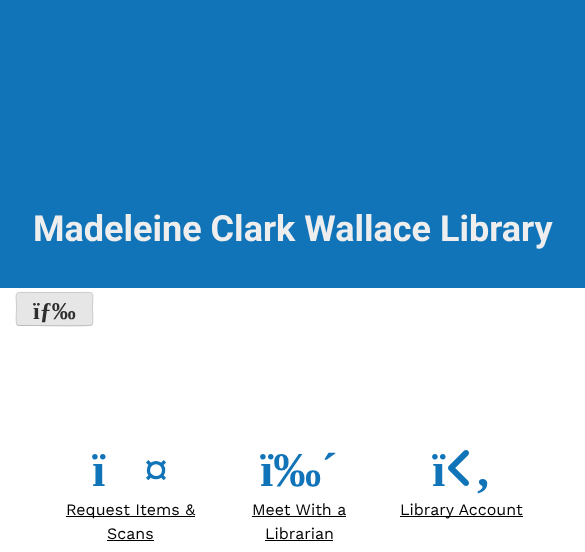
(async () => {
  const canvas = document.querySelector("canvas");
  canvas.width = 585;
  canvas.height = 552;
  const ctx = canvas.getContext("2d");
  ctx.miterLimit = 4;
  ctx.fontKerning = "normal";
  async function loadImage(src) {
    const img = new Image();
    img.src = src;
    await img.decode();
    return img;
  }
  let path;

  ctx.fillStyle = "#ffffff";
  ctx.fillRect(0, 0, 585, 552);
  ctx.fillStyle = "#1274b8";
  ctx.fillRect(0, 0, 585, 288);
  ctx.fillStyle = "#e6e6e6";
  ctx.beginPath();
  ctx.roundRect(16, 292, 77, 34, 3);
  ctx.fill();
  path = new Path2D("M92 325H91.5C89.5 326.5 37.5 325.5 31 325.5H19L17 325");
  ctx.strokeStyle = "#bbbbbb";
  ctx.stroke(path);
  path = new Path2D("M17 325C15.5 323 16.5 311.5 16.5 309C16.5 290 12.5 292.5 31 292.5H78C96.5 292.5 92.5 290 92.5 309C92.5 311.5 93.5 323 92 325");
  ctx.strokeStyle = "#cccccc";
  ctx.stroke(path);
  for (const [x, y, w, h, color] of [
    [66, 516, 129, 1, "#000000"],
    [107, 540, 47, 1, "#000000"],
    [252, 516, 94, 1, "#000000"],
    [265, 540, 68, 1, "#000000"],
  ]) {
    ctx.fillStyle = color;
    ctx.fillRect(x, y, w, h);
  }
  ctx.drawImage(await loadImage("img/1.png"), 448, 450, 21, 36);
  ctx.fillRect(400, 516, 123, 1);
  ctx.font = "bold 36px Roboto";
  ctx.fillStyle = "#eeeeee";
  ctx.fillText("Madeleine Clark Wallace Library", 33, 241);
  ctx.font = "bold 24px Liberation Serif";
  ctx.fillStyle = "#2e2e2e";
  ctx.fillText("ïƒ‰", 33, 319);
  ctx.font = "bold 48px Liberation Serif";
  ctx.fillStyle = "#1274b8";
  ctx.fillText("ï", 92, 486);
  ctx.fillText("¤", 144, 486);
  ctx.font = "16px Work Sans";
  ctx.fillStyle = "#000000";
  ctx.fillText("Request Items &", 66, 515);
  ctx.fillText("Scans", 107, 539);
  ctx.font = "bold 48px Liberation Serif";
  ctx.fillStyle = "#1274b8";
  ctx.fillText("ï‰´", 260, 486);
  ctx.font = "16px Work Sans";
  ctx.fillStyle = "#000000";
  ctx.fillText("Meet With a", 252, 515);
  ctx.fillText("Librarian", 265, 539);
  ctx.font = "bold 48px Liberation Serif";
  ctx.fillStyle = "#1274b8";
  ctx.fillText("ï", 432, 486);
  ctx.fillText("‚", 475, 486);
  ctx.font = "16px Work Sans";
  ctx.fillStyle = "#000000";
  ctx.fillText("Library Account", 400, 515);
})();
